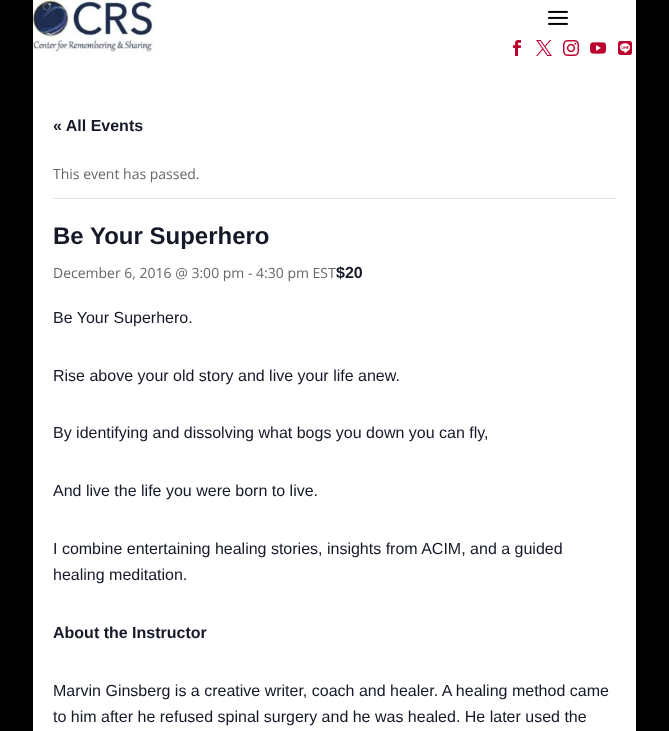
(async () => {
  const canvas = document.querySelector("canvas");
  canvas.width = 669;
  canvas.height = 731;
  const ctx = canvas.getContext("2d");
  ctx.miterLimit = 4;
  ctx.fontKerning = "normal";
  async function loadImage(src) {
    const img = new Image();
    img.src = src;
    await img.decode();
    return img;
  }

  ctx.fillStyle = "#000000";
  ctx.fillRect(0, 0, 669, 731);
  ctx.fillStyle = "#ffffff";
  ctx.fillRect(33, 0, 603, 731);
  ctx.drawImage(await loadImage("img/1.png"), 33, 0, 121, 53);
  ctx.drawImage(await loadImage("img/2.png"), 548, 10, 20, 15);
  ctx.drawImage(await loadImage("img/3.png"), 513, 40, 8, 16);
  ctx.drawImage(await loadImage("img/4.png"), 536, 40, 16, 16);
  ctx.drawImage(await loadImage("img/5.png"), 563, 40, 16, 16);
  ctx.drawImage(await loadImage("img/6.png"), 590, 42, 16, 12);
  ctx.drawImage(await loadImage("img/7.png"), 618, 41, 15, 14);
  ctx.fillStyle = "#e4e4e4";
  ctx.fillRect(53, 198, 563, 1);
  ctx.font = "bold 16px Liberation Sans";
  ctx.fillStyle = "#141827";
  ctx.fillText("« All Events", 53, 131);
  ctx.font = "14px Open Sans";
  ctx.fillStyle = "#666666";
  ctx.fillText("This event has passed.", 53, 179);
  ctx.font = "bold 24px Liberation Sans";
  ctx.fillStyle = "#141827";
  ctx.fillText("Be Your Superhero", 53, 244);
  ctx.font = "14px Open Sans";
  ctx.fillStyle = "#666666";
  ctx.fillText("December 6, 2016 @ 3:00 pm - 4:30 pm EST", 53, 278);
  ctx.font = "bold 16px Liberation Sans";
  ctx.fillStyle = "#141827";
  ctx.fillText("$20", 336, 278);
  ctx.font = "16px Liberation Sans";
  for (const [text, x, y] of [
    ["Be Your Superhero.", 53, 323],
    ["Rise above your old story and live your life anew.", 53, 381],
    ["By identifying and dissolving what bogs you down you can fly,", 53, 438],
    ["And live the life you were born to live.", 53, 496],
    ["I combine entertaining healing stories, insights from ACIM, and a guided", 53, 554],
    ["healing meditation.", 53, 580],
  ]) {
    ctx.fillText(text, x, y);
  }
  ctx.font = "bold 16px Liberation Sans";
  ctx.fillText("About the Instructor", 53, 638);
  ctx.font = "16px Liberation Sans";
  ctx.fillText("Marvin Ginsberg is a creative writer, coach and healer. A healing method came", 53, 696);
  ctx.fillText("to him after he refused spinal surgery and he was healed. He later used the", 53, 722);
})();
